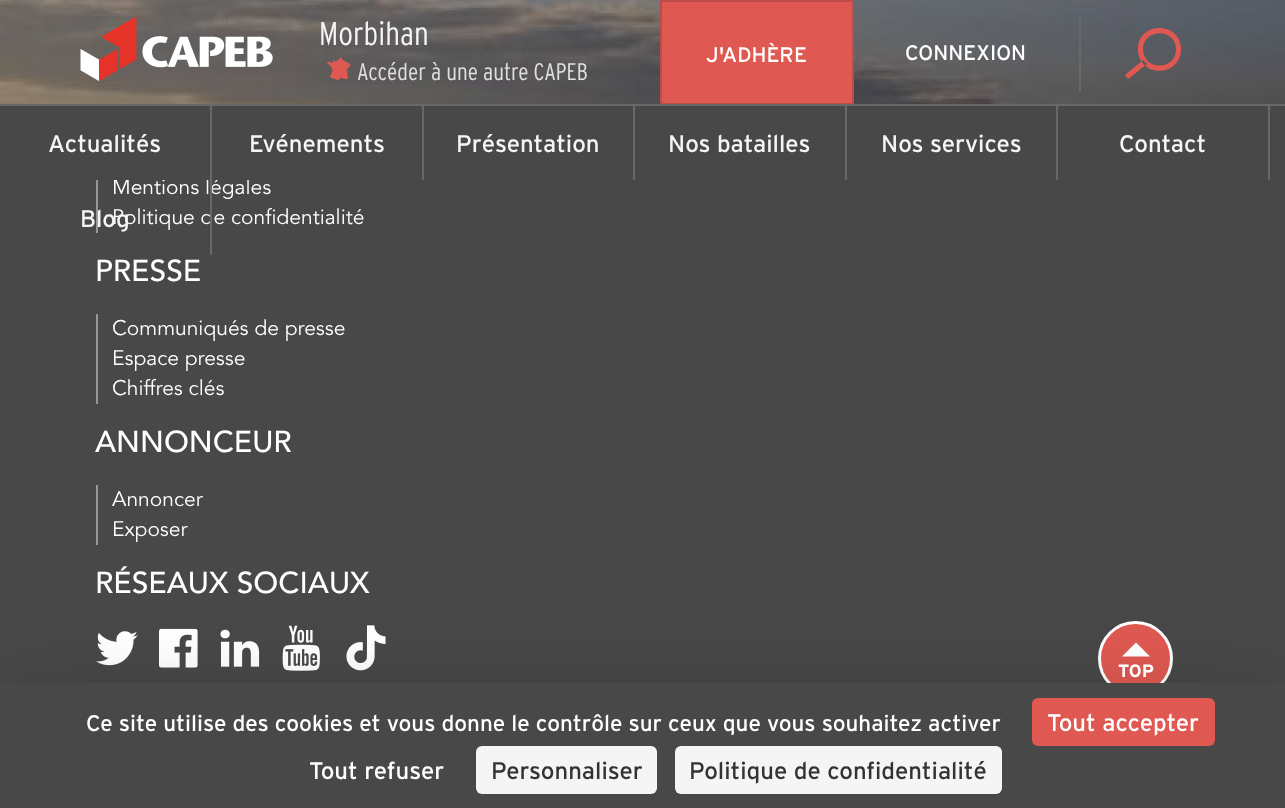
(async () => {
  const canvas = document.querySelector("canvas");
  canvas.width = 1285;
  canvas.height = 808;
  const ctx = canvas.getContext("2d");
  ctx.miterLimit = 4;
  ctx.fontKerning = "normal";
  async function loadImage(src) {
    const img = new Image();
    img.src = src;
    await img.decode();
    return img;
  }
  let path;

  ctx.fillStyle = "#484848";
  ctx.fillRect(0, 0, 1285, 808);
  ctx.drawImage(await loadImage("img/1.png"), 0, 0, 1285, 104);
  ctx.drawImage(await loadImage("img/2.png"), 80, 16, 193, 65);
  ctx.drawImage(await loadImage("img/3.png"), 327, 57, 24, 24);
  ctx.fillStyle = "#df5952";
  ctx.fillRect(662, 2, 190, 101);
  ctx.fillStyle = "#686868";
  ctx.fillRect(1079, 17, 2, 75);
  ctx.fillStyle = "#df5952";
  path = new Path2D("M1125 75L1143 60L1147 64L1128 79ZM1181 49C1181 21 1138 21 1138 49C1138 78 1181 78 1181 49ZM1143 49C1143 28 1176 28 1176 49C1176 71 1143 71 1143 49Z");
  ctx.fill(path);
  for (const [x, y, w, h, color] of [
    [422, 105, 2, 75, "#686868"],
    [633, 105, 2, 75, "#686868"],
    [845, 105, 2, 75, "#686868"],
    [1056, 105, 2, 75, "#686868"],
    [1268, 105, 2, 75, "#686868"],
    [96, 180, 2, 53, "#979797"],
    [96, 314, 2, 90, "#979797"],
    [96, 485, 2, 60, "#979797"],
  ]) {
    ctx.fillStyle = color;
    ctx.fillRect(x, y, w, h);
  }
  ctx.drawImage(await loadImage("img/4.png"), 96, 631, 42, 35);
  ctx.drawImage(await loadImage("img/5.png"), 159, 628, 39, 40);
  ctx.drawImage(await loadImage("img/6.png"), 220, 629, 40, 38);
  ctx.drawImage(await loadImage("img/7.png"), 282, 625, 38, 46);
  ctx.drawImage(await loadImage("img/8.png"), 346, 625, 40, 46);
  ctx.fillStyle = "#df5952";
  ctx.beginPath();
  ctx.arc(1135.5, 658.5, 36, 0, Math.PI * 2);
  ctx.fill();
  ctx.strokeStyle = "#ffffff";
  ctx.lineWidth = 3;
  ctx.stroke();
  ctx.fillStyle = "#ffffff";
  path = new Path2D("M1136 642.5L1122 656.5H1150Z");
  ctx.fill(path);
  ctx.fillStyle = "rgba(0, 0, 0, 0.25)";
  ctx.filter = "blur(45px)";
  ctx.beginPath();
  ctx.rect(0, 713, 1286, 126);
  ctx.fill();
  ctx.filter = "none";
  ctx.fillStyle = "#484848";
  ctx.fillRect(0, 683, 1285, 125);
  ctx.fillStyle = "#df5952";
  ctx.beginPath();
  ctx.roundRect(1032, 698, 183, 48, 6);
  ctx.fill();
  ctx.fillStyle = "#f5f5f5";
  ctx.beginPath();
  ctx.roundRect(476, 746, 181, 48, 6);
  ctx.fill();
  ctx.beginPath();
  ctx.roundRect(675, 746, 327, 48, 6);
  ctx.fill();
  ctx.font = "300 33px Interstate";
  ctx.fillText("Morbihan", 319, 45);
  ctx.font = "300 24px Interstate";
  ctx.fillStyle = "#e0e0e0";
  ctx.fillText("Accéder à une autre CAPEB", 357, 80);
  ctx.font = "21px Interstate";
  ctx.fillStyle = "#ffffff";
  ctx.fillText("CONNEXION", 905, 60);
  ctx.font = "24px Interstate";
  ctx.fillStyle = "#f5f5f5";
  for (const [text, x, y] of [
    ["Actualités", 48, 152],
    ["Evénements", 249, 152],
    ["Présentation", 456, 152],
    ["Nos batailles", 668, 152],
    ["Nos services", 881, 152],
    ["Contact", 1119, 152],
  ]) {
    ctx.fillText(text, x, y);
  }
  ctx.font = "21px Avenir";
  ctx.fillStyle = "#ffffff";
  ctx.fillText("Mentions légales", 112, 194);
  ctx.fillStyle = "#484848";
  ctx.fillRect(113, 178, 136, 2);
  ctx.fillStyle = "#ffffff";
  ctx.fillText("Politique de confidentialité", 112, 224);
  ctx.fillStyle = "#686868";
  ctx.fillRect(210, 105, 2, 150);
  ctx.fillRect(0, 104, 1285, 2);
  ctx.save();
  ctx.beginPath();
  ctx.rect(0, 0, 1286, 104);
  ctx.clip();
  ctx.strokeStyle = "#bc4c47";
  ctx.lineWidth = 2;
  ctx.strokeRect(661, 1, 192, 103);
  ctx.restore();
  ctx.font = "21px Interstate";
  ctx.fillStyle = "#ffffff";
  ctx.fillText("J'ADHÈRE", 706, 62);
  ctx.font = "24px Interstate";
  ctx.fillStyle = "#f5f5f5";
  ctx.fillText("Blog", 80, 227);
  ctx.font = "500 30px Avenir";
  ctx.fillStyle = "#ffffff";
  ctx.fillText("PRESSE", 95, 281);
  ctx.font = "21px Avenir";
  for (const [text, x, y] of [
    ["Communiqués de presse", 112, 335],
    ["Espace presse", 112, 365],
    ["Chiffres clés", 112, 395],
  ]) {
    ctx.fillText(text, x, y);
  }
  ctx.font = "500 30px Avenir";
  ctx.fillText("ANNONCEUR", 95, 452);
  ctx.font = "21px Avenir";
  ctx.fillText("Annoncer", 112, 506);
  ctx.fillText("Exposer", 112, 536);
  ctx.font = "500 30px Avenir";
  ctx.fillText("RÉSEAUX SOCIAUX", 95, 593);
  ctx.font = "bold 18px Interstate";
  ctx.fillText("TOP", 1118, 677);
  ctx.font = "22.5px Interstate";
  ctx.fillText("Ce site utilise des cookies et vous donne le contrôle sur ceux que vous souhaitez activer", 86, 731);
  ctx.font = "24px Interstate";
  ctx.fillText("Tout accepter", 1047, 731);
  ctx.fillText("Tout refuser", 309, 779);
  ctx.fillStyle = "#333333";
  ctx.fillText("Personnaliser", 491, 779);
  ctx.fillText("Politique de confidentialité", 689, 779);
})();
